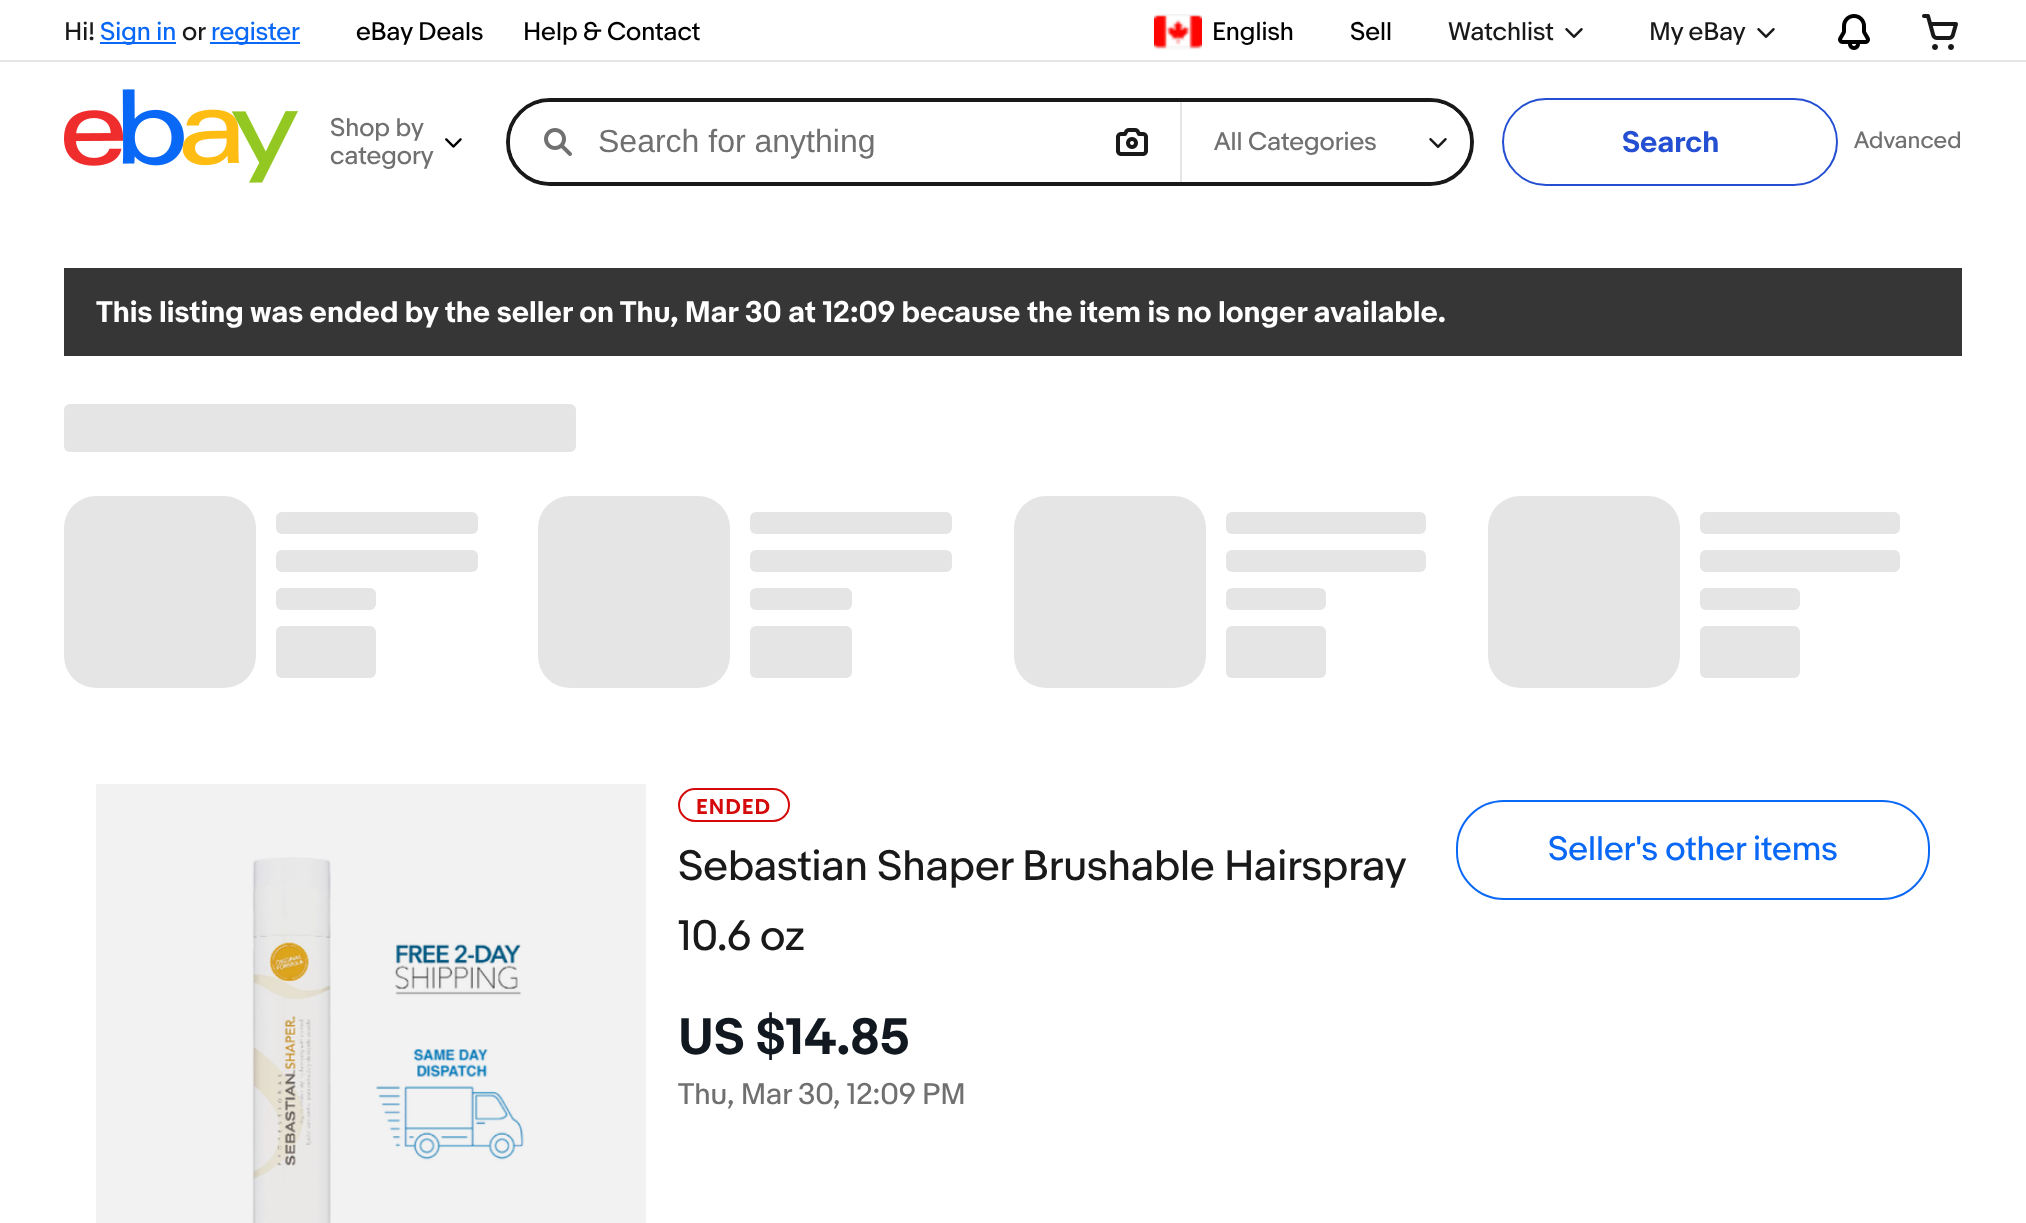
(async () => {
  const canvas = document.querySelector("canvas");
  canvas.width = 2026;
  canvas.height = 1223;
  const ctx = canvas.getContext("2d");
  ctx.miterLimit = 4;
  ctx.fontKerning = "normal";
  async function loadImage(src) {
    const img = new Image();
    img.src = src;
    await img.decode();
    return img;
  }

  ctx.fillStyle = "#ffffff";
  ctx.fillRect(0, 0, 2026, 1223);
  ctx.fillStyle = "#0968f6";
  ctx.fillRect(100, 42, 76, 2);
  ctx.fillRect(210, 42, 90, 2);
  ctx.drawImage(await loadImage("img/1.png"), 1154, 14, 48, 36);
  ctx.drawImage(await loadImage("img/2.png"), 1565, 28, 18, 10);
  ctx.drawImage(await loadImage("img/2.png"), 1757, 28, 18, 10);
  ctx.drawImage(await loadImage("img/3.png"), 1838, 14, 32, 36);
  ctx.drawImage(await loadImage("img/4.png"), 1922, 14, 36, 36);
  ctx.drawImage(await loadImage("img/5.png"), 64, 89, 234, 94);
  ctx.drawImage(await loadImage("img/6.png"), 445, 138, 17, 10);
  ctx.beginPath();
  ctx.roundRect(508, 100, 964, 84, 42);
  ctx.strokeStyle = "#191919";
  ctx.lineWidth = 4;
  ctx.stroke();
  ctx.fillStyle = "#e5e5e5";
  ctx.fillRect(1180, 102, 2, 80);
  ctx.fillStyle = "#ffffff";
  ctx.beginPath();
  ctx.roundRect(510, 102, 670, 80, [40, 0, 0, 40]);
  ctx.fill();
  ctx.drawImage(await loadImage("img/7.png"), 544, 128, 28, 28);
  ctx.drawImage(await loadImage("img/8.png"), 1116, 128, 32, 28);
  ctx.beginPath();
  ctx.roundRect(1182, 102, 288, 80, [0, 40, 40, 0]);
  ctx.fill();
  ctx.drawImage(await loadImage("img/2.png"), 1429, 138, 18, 10);
  ctx.beginPath();
  ctx.roundRect(1503, 99, 334, 86, 43);
  ctx.strokeStyle = "#254fd2";
  ctx.lineWidth = 2;
  ctx.stroke();
  ctx.fillStyle = "#363636";
  ctx.fillRect(64, 268, 1898, 88);
  ctx.fillStyle = "#e5e5e5";
  ctx.beginPath();
  ctx.roundRect(64, 404, 512, 48, 6);
  ctx.fill();
  ctx.beginPath();
  ctx.roundRect(64, 496, 192, 192, 32);
  ctx.fill();
  ctx.beginPath();
  ctx.roundRect(276, 512, 202, 22, 6);
  ctx.fill();
  ctx.beginPath();
  ctx.roundRect(276, 550, 202, 22, 6);
  ctx.fill();
  ctx.beginPath();
  ctx.roundRect(276, 588, 100, 22, 6);
  ctx.fill();
  ctx.beginPath();
  ctx.roundRect(276, 626, 100, 52, 6);
  ctx.fill();
  ctx.beginPath();
  ctx.roundRect(538, 496, 192, 192, 32);
  ctx.fill();
  ctx.beginPath();
  ctx.roundRect(750, 512, 202, 22, 6);
  ctx.fill();
  ctx.beginPath();
  ctx.roundRect(750, 550, 202, 22, 6);
  ctx.fill();
  ctx.beginPath();
  ctx.roundRect(750, 588, 102, 22, 6);
  ctx.fill();
  ctx.beginPath();
  ctx.roundRect(750, 626, 102, 52, 6);
  ctx.fill();
  ctx.beginPath();
  ctx.roundRect(1014, 496, 192, 192, 32);
  ctx.fill();
  ctx.beginPath();
  ctx.roundRect(1226, 512, 200, 22, 6);
  ctx.fill();
  ctx.beginPath();
  ctx.roundRect(1226, 550, 200, 22, 6);
  ctx.fill();
  ctx.beginPath();
  ctx.roundRect(1226, 588, 100, 22, 6);
  ctx.fill();
  ctx.beginPath();
  ctx.roundRect(1226, 626, 100, 52, 6);
  ctx.fill();
  ctx.beginPath();
  ctx.roundRect(1488, 496, 192, 192, 32);
  ctx.fill();
  ctx.beginPath();
  ctx.roundRect(1700, 512, 200, 22, 6);
  ctx.fill();
  ctx.beginPath();
  ctx.roundRect(1700, 550, 200, 22, 6);
  ctx.fill();
  ctx.beginPath();
  ctx.roundRect(1700, 588, 100, 22, 6);
  ctx.fill();
  ctx.beginPath();
  ctx.roundRect(1700, 626, 100, 52, 6);
  ctx.fill();
  ctx.drawImage(await loadImage("img/9.png"), 252, 857, 272, 366);
  ctx.fillStyle = "rgba(0, 0, 0, 0.05)";
  ctx.fillRect(96, 784, 550, 439);
  ctx.beginPath();
  ctx.roundRect(679, 789, 110, 32, 16);
  ctx.strokeStyle = "#d50b0b";
  ctx.stroke();
  ctx.beginPath();
  ctx.roundRect(1457, 801, 472, 98, 47);
  ctx.strokeStyle = "#0968f6";
  ctx.stroke();
  ctx.fillStyle = "#e5e5e5";
  ctx.fillRect(0, 60, 2026, 2);
  ctx.font = "24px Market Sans";
  ctx.fillStyle = "#191919";
  ctx.fillText("Hi!", 64, 40);
  ctx.fillStyle = "#0968f6";
  ctx.fillText("Sign in", 100, 40);
  ctx.fillStyle = "#191919";
  ctx.fillText("or", 182, 40);
  ctx.fillStyle = "#0968f6";
  ctx.fillText("register", 211, 40);
  ctx.fillStyle = "#000000";
  for (const [text, x, y] of [
    ["eBay Deals", 356, 40],
    ["Help & Contact", 523, 40],
    ["English", 1212, 40],
    ["Sell", 1350, 40],
  ]) {
    ctx.fillText(text, x, y);
  }
  ctx.fillStyle = "#191919";
  ctx.fillText("Watchlist", 1448, 40);
  ctx.fillText("My eBay", 1649, 40);
  ctx.fillStyle = "#707070";
  ctx.fillText("Shop by", 330, 136);
  ctx.fillText("category", 330, 164);
  ctx.font = "32px Liberation Sans";
  ctx.fillText("Search for anything", 598, 152);
  ctx.font = "24px Market Sans";
  ctx.fillText("All Categories", 1214, 150);
  ctx.font = "bold 28px Market Sans";
  ctx.fillStyle = "#254fd2";
  ctx.fillText("Search", 1622, 152);
  ctx.font = "22px Market Sans";
  ctx.fillStyle = "#707070";
  ctx.fillText("Advanced", 1854, 148);
  ctx.font = "bold 28px Market Sans";
  ctx.fillStyle = "#ffffff";
  ctx.fillText("This listing was ended by the seller on Thu, Mar 30 at 12:09 because the item is no longer available.", 96, 322);
  ctx.letterSpacing = "1px";
  ctx.font = "bold 20px Market Sans";
  ctx.fillStyle = "#d50b0b";
  ctx.fillText("ENDED", 696, 814);
  ctx.letterSpacing = "0px";
  ctx.font = "40px Market Sans";
  ctx.fillStyle = "#191919";
  ctx.fillText("Sebastian Shaper Brushable Hairspray", 678, 880);
  ctx.fillText("10.6 oz", 678, 950);
  ctx.font = "bold 48px Market Sans";
  ctx.fillStyle = "#111820";
  ctx.fillText("US $14.85", 678, 1054);
  ctx.font = "28px Market Sans";
  ctx.fillStyle = "#707070";
  ctx.fillText("Thu, Mar 30, 12:09 PM", 678, 1104);
  ctx.font = "32px Market Sans";
  ctx.fillStyle = "#0968f6";
  ctx.fillText("Seller's other items", 1548, 860);
})();
